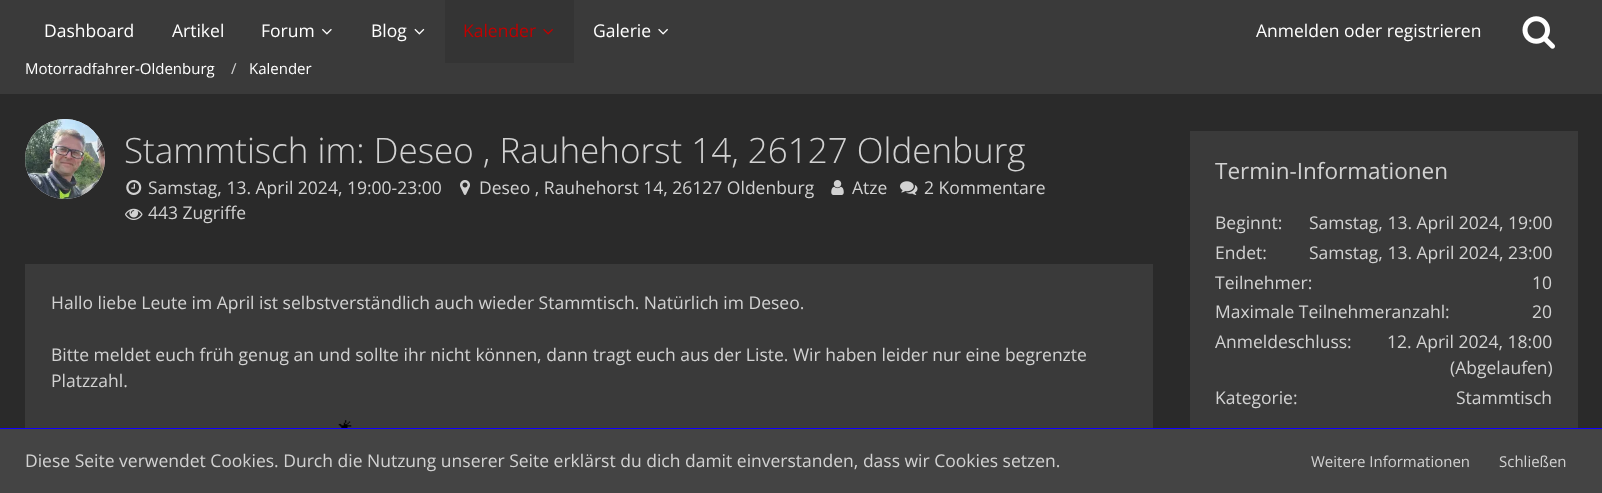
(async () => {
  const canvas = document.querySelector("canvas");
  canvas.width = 1602;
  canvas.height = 493;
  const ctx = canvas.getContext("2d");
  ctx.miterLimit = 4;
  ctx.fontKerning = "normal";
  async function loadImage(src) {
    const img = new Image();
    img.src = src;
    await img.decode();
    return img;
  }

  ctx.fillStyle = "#2a2a2a";
  ctx.fillRect(0, 0, 1602, 493);
  ctx.fillStyle = "#3a3a3a";
  ctx.fillRect(0, 63, 1602, 31);
  ctx.fillStyle = "#ffffff";
  ctx.beginPath();
  ctx.arc(65, 159, 40, 0, Math.PI * 2);
  ctx.fill();
  ctx.drawImage(await loadImage("img/6.png"), 25, 119, 80, 80);
  ctx.drawImage(await loadImage("img/7.png"), 126, 180, 16, 15);
  ctx.drawImage(await loadImage("img/8.png"), 460, 180, 10, 15);
  ctx.drawImage(await loadImage("img/9.png"), 831, 180, 13, 15);
  ctx.drawImage(await loadImage("img/10.png"), 900, 181, 18, 14);
  ctx.drawImage(await loadImage("img/11.png"), 125, 208, 18, 12);
  ctx.fillStyle = "#3a3a3a";
  ctx.fillRect(25, 264, 1128, 164);
  ctx.drawImage(await loadImage("img/12.png"), 338, 420, 14, 8);
  for (const [x, y, w, h, color] of [
    [1190, 131, 388, 297, "#3a3a3a"],
    [0, 429, 1602, 64, "#444444"],
    [0, 428, 1602, 1, "#1100ff"],
  ]) {
    ctx.fillStyle = color;
    ctx.fillRect(x, y, w, h);
  }
  ctx.font = "15px Open Sans";
  ctx.fillStyle = "#ffffff";
  ctx.fillText("Motorradfahrer-Oldenburg", 25, 74);
  ctx.fillStyle = "#d2d2d2";
  ctx.fillText("/", 231, 74);
  ctx.fillStyle = "#ffffff";
  ctx.fillText("Kalender", 249, 74);
  ctx.fillStyle = "#3a3a3a";
  ctx.fillRect(0, 0, 1602, 63);
  ctx.drawImage(await loadImage("img/5.png"), 1522, 16, 33, 33);
  ctx.font = "17.5px Open Sans";
  ctx.fillStyle = "#ffffff";
  ctx.fillText("Anmelden oder registrieren", 1256, 37);
  ctx.drawImage(await loadImage("img/4.png"), 658, 28, 10, 7);
  ctx.fillText("Galerie", 593, 37);
  ctx.fillStyle = "#343434";
  ctx.fillRect(445, 0, 129, 63);
  ctx.drawImage(await loadImage("img/3.png"), 543, 28, 10, 7);
  ctx.fillStyle = "#c00000";
  ctx.fillText("Kalender", 463, 37);
  ctx.drawImage(await loadImage("img/2.png"), 414, 28, 11, 7);
  ctx.fillStyle = "#ffffff";
  ctx.fillText("Blog", 371, 37);
  ctx.drawImage(await loadImage("img/1.png"), 322, 28, 10, 7);
  for (const [text, x, y] of [
    ["Forum", 261, 37],
    ["Artikel", 172, 37],
    ["Dashboard", 44, 37],
  ]) {
    ctx.fillText(text, x, y);
  }
  ctx.font = "300 35px Open Sans";
  ctx.fillStyle = "#d2d2d2";
  ctx.fillText("Stammtisch im: Deseo , Rauhehorst 14, 26127 Oldenburg", 124, 163);
  ctx.font = "17.5px Open Sans";
  for (const [text, x, y] of [
    ["Samstag, 13. April 2024, 19:00-23:00", 148, 194],
    ["Deseo , Rauhehorst 14, 26127 Oldenburg", 479, 194],
    ["Atze", 852, 194],
    ["2 Kommentare", 924, 194],
    ["443 Zugriffe", 148, 219],
    ["Hallo liebe Leute im April ist selbstverständlich auch wieder Stammtisch. Natürlich im Deseo.", 51, 309],
    ["Bitte meldet euch früh genug an und sollte ihr nicht können, dann tragt euch aus der Liste. Wir haben leider nur eine begrenzte", 51, 361],
    ["Platzzahl.", 51, 387],
  ]) {
    ctx.fillText(text, x, y);
  }
  ctx.font = "22.5px Open Sans";
  ctx.fillText("Termin-Informationen", 1215, 179);
  ctx.font = "17.5px Open Sans";
  for (const [text, x, y] of [
    ["Beginnt:", 1215, 229],
    ["Samstag, 13. April 2024, 19:00", 1309, 229],
    ["Endet:", 1215, 259],
    ["Samstag, 13. April 2024, 23:00", 1309, 259],
    ["Teilnehmer:", 1215, 289],
    ["10", 1532, 289],
    ["Maximale Teilnehmeranzahl:", 1215, 318],
    ["20", 1532, 318],
    ["Anmeldeschluss:", 1215, 348],
    ["12. April 2024, 18:00", 1387, 348],
    ["(Abgelaufen)", 1450, 374],
    ["Kategorie:", 1215, 404],
    ["Stammtisch", 1456, 404],
    ["Diese Seite verwendet Cookies. Durch die Nutzung unserer Seite erklärst du dich damit einverstanden, dass wir Cookies setzen.", 25, 467],
  ]) {
    ctx.fillText(text, x, y);
  }
  ctx.font = "15px Open Sans";
  ctx.fillText("Weitere Informationen", 1311, 467);
  ctx.fillText("Schließen", 1499, 467);
})();
